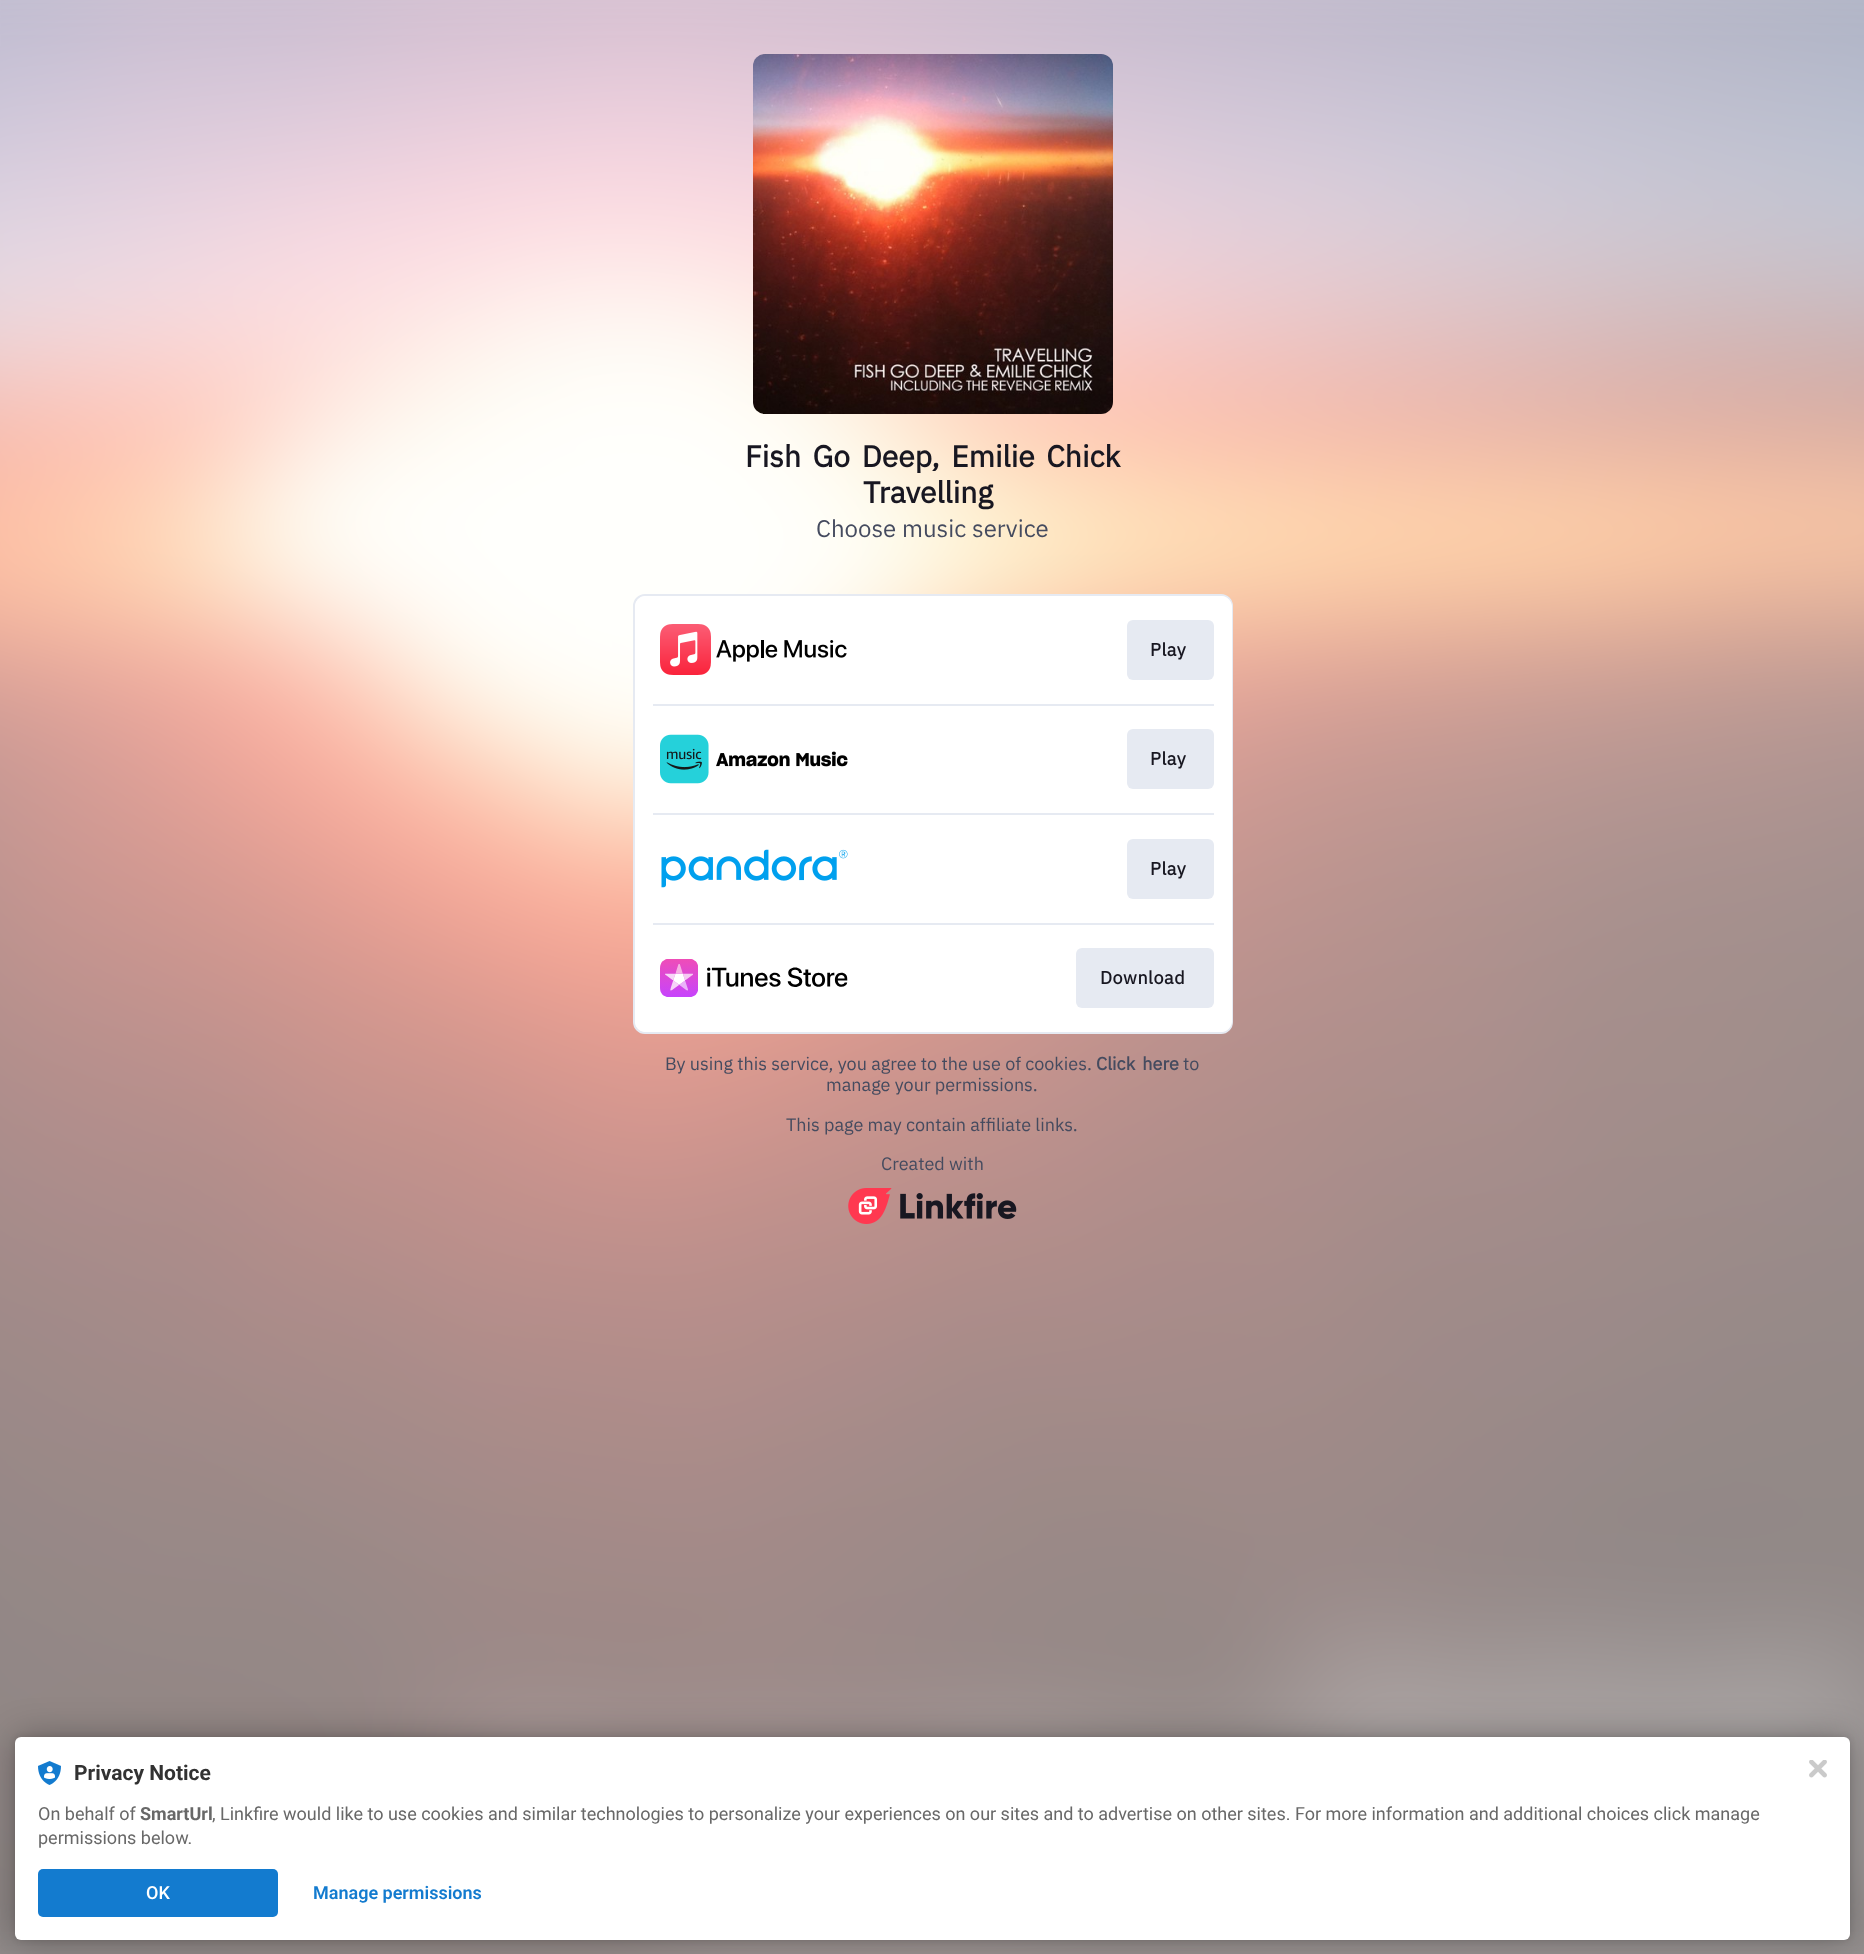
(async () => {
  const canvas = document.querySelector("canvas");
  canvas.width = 1864;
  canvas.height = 1954;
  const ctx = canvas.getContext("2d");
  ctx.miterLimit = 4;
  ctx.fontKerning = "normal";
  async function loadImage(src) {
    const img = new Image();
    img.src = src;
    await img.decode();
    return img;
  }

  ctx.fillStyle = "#ffffff";
  ctx.fillRect(0, 0, 1864, 1954);
  ctx.drawImage(await loadImage("img/1.png"), 0, 0, 1864, 1954);
  ctx.drawImage(await loadImage("img/2.png"), 753, 54, 360, 360);
  ctx.beginPath();
  ctx.roundRect(634, 595, 598, 438, 11);
  ctx.fill();
  ctx.strokeStyle = "#e6eaf2";
  ctx.lineWidth = 2;
  ctx.stroke();
  ctx.beginPath();
  ctx.roundRect(635, 596, 597, 436, 11);
  ctx.fill();
  ctx.drawImage(await loadImage("img/3.png"), 660, 624, 187, 51);
  ctx.fillStyle = "#e6eaf2";
  ctx.beginPath();
  ctx.roundRect(1127, 620, 87, 60, 6);
  ctx.fill();
  ctx.fillRect(653, 704, 561, 2);
  ctx.drawImage(await loadImage("img/4.png"), 660, 734, 188, 50);
  ctx.beginPath();
  ctx.roundRect(1127, 729, 87, 60, 6);
  ctx.fill();
  ctx.fillRect(653, 813, 561, 2);
  ctx.drawImage(await loadImage("img/5.png"), 661, 849, 187, 39);
  ctx.beginPath();
  ctx.roundRect(1127, 839, 87, 60, 6);
  ctx.fill();
  ctx.fillRect(653, 923, 561, 2);
  ctx.drawImage(await loadImage("img/6.png"), 660, 959, 188, 38);
  ctx.beginPath();
  ctx.roundRect(1076, 948, 138, 60, 6);
  ctx.fill();
  ctx.drawImage(await loadImage("img/7.png"), 848, 1188, 169, 36);
  ctx.fillStyle = "rgba(0, 0, 0, 0.12)";
  ctx.filter = "blur(3px)";
  ctx.beginPath();
  ctx.roundRect(15, 1737, 1835, 203, 6);
  ctx.fill();
  ctx.filter = "none";
  ctx.fillStyle = "rgba(0, 0, 0, 0.3)";
  ctx.filter = "blur(18px)";
  ctx.beginPath();
  ctx.roundRect(15, 1737, 1835, 203, 6);
  ctx.fill();
  ctx.filter = "none";
  ctx.fillStyle = "#ffffff";
  ctx.beginPath();
  ctx.roundRect(15, 1737, 1835, 203, 6);
  ctx.fill();
  ctx.drawImage(await loadImage("img/8.png"), 38, 1761, 23, 24);
  ctx.fillStyle = "#137bcf";
  ctx.beginPath();
  ctx.roundRect(38, 1869, 240, 48, 5);
  ctx.fill();
  ctx.drawImage(await loadImage("img/9.png"), 1809, 1760, 18, 18);
  ctx.wordSpacing = "4.5px";
  ctx.font = "bold 30px IBM Plex Sans";
  ctx.fillStyle = "#181721";
  ctx.fillText("Fish Go Deep, Emilie Chick", 745, 467);
  ctx.wordSpacing = "0px";
  ctx.fillText("Travelling", 863, 503);
  ctx.font = "24px IBM Plex Sans";
  ctx.fillStyle = "#454b5f";
  ctx.fillText("Choose music service", 816, 537);
  ctx.letterSpacing = "0.5px";
  ctx.font = "bold 18px IBM Plex Sans";
  ctx.fillStyle = "#181721";
  for (const [text, x, y] of [
    ["Play", 1150, 656],
    ["Play", 1150, 765],
    ["Play", 1150, 875],
    ["Download", 1100, 984],
  ]) {
    ctx.fillText(text, x, y);
  }
  ctx.letterSpacing = "0px";
  ctx.font = "18px IBM Plex Sans";
  ctx.fillStyle = "#454b5f";
  ctx.fillText("By using this service, you agree to the use of cookies.", 665, 1070);
  ctx.wordSpacing = "3px";
  ctx.font = "bold 18px IBM Plex Sans";
  ctx.fillText("Click here", 1096, 1070);
  ctx.wordSpacing = "0px";
  ctx.font = "18px IBM Plex Sans";
  for (const [text, x, y] of [
    ["to", 1183, 1070],
    ["manage your permissions.", 826, 1091],
    ["This page may contain affiliate links.", 786, 1131],
    ["Created with", 881, 1170],
  ]) {
    ctx.fillText(text, x, y);
  }
  ctx.font = "bold 21px Roboto";
  ctx.fillStyle = "#323232";
  ctx.fillText("Privacy Notice", 74, 1780);
  ctx.font = "18px Roboto";
  ctx.fillStyle = "#686868";
  ctx.fillText("On behalf of", 38, 1820);
  ctx.font = "bold 18px Roboto";
  ctx.fillText("SmartUrl", 140, 1820);
  ctx.font = "18px Roboto";
  ctx.fillText(", Linkfire would like to use cookies and similar technologies to personalize your experiences on our sites and to advertise on other sites. For more information and additional choices click manage", 212, 1820);
  ctx.fillText("permissions below.", 38, 1844);
  ctx.font = "500 18px Roboto";
  ctx.fillStyle = "#ffffff";
  ctx.fillText("OK", 146, 1899);
  ctx.font = "600 18px Roboto";
  ctx.fillStyle = "#137bcf";
  ctx.fillText("Manage permissions", 313, 1899);
})();
